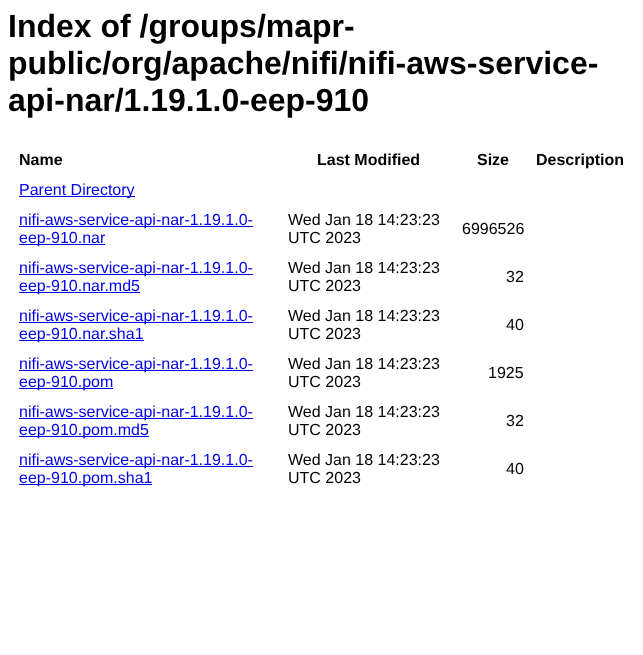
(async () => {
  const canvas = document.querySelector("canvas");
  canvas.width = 643;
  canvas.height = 655;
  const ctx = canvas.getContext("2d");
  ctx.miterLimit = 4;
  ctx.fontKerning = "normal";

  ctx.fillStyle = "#ffffff";
  ctx.fillRect(0, 0, 643, 655);
  for (const [x, y, w, h, color] of [
    [19, 196, 116, 1, "#0000ee"],
    [19, 226, 234, 1, "#0000ee"],
    [19, 244, 86, 1, "#0000ee"],
    [19, 274, 234, 1, "#0000ee"],
    [19, 292, 121, 1, "#0000ee"],
    [19, 322, 234, 1, "#0000ee"],
    [19, 340, 125, 1, "#0000ee"],
    [19, 370, 234, 1, "#0000ee"],
    [19, 388, 94, 1, "#0000ee"],
    [19, 418, 234, 1, "#0000ee"],
    [19, 436, 130, 1, "#0000ee"],
    [19, 466, 234, 1, "#0000ee"],
    [19, 484, 133, 1, "#0000ee"],
  ]) {
    ctx.fillStyle = color;
    ctx.fillRect(x, y, w, h);
  }
  ctx.font = "bold 32px Liberation Sans";
  ctx.fillStyle = "#000000";
  for (const [text, x, y] of [
    ["Index of /groups/mapr-", 8, 37],
    ["public/org/apache/nifi/nifi-aws-service-", 8, 74],
    ["api-nar/1.19.1.0-eep-910", 8, 111],
  ]) {
    ctx.fillText(text, x, y);
  }
  ctx.font = "bold 16px Liberation Sans";
  for (const [text, x, y] of [
    ["Name", 19, 165],
    ["Last Modified", 317, 165],
    ["Size", 477, 165],
    ["Description", 536, 165],
  ]) {
    ctx.fillText(text, x, y);
  }
  ctx.font = "16px Liberation Sans";
  ctx.fillStyle = "#0000ee";
  for (const [text, x, y] of [
    ["Parent Directory", 19, 195],
    ["nifi-aws-service-api-nar-1.19.1.0-", 19, 225],
    ["eep-910.nar", 19, 243],
  ]) {
    ctx.fillText(text, x, y);
  }
  ctx.fillStyle = "#000000";
  for (const [text, x, y] of [
    ["Wed Jan 18 14:23:23", 288, 225],
    ["UTC 2023", 288, 243],
    ["6996526", 462, 234],
  ]) {
    ctx.fillText(text, x, y);
  }
  ctx.fillStyle = "#0000ee";
  ctx.fillText("nifi-aws-service-api-nar-1.19.1.0-", 19, 273);
  ctx.fillText("eep-910.nar.md5", 19, 291);
  ctx.fillStyle = "#000000";
  for (const [text, x, y] of [
    ["Wed Jan 18 14:23:23", 288, 273],
    ["UTC 2023", 288, 291],
    ["32", 506, 282],
  ]) {
    ctx.fillText(text, x, y);
  }
  ctx.fillStyle = "#0000ee";
  ctx.fillText("nifi-aws-service-api-nar-1.19.1.0-", 19, 321);
  ctx.fillText("eep-910.nar.sha1", 19, 339);
  ctx.fillStyle = "#000000";
  for (const [text, x, y] of [
    ["Wed Jan 18 14:23:23", 288, 321],
    ["UTC 2023", 288, 339],
    ["40", 506, 330],
  ]) {
    ctx.fillText(text, x, y);
  }
  ctx.fillStyle = "#0000ee";
  ctx.fillText("nifi-aws-service-api-nar-1.19.1.0-", 19, 369);
  ctx.fillText("eep-910.pom", 19, 387);
  ctx.fillStyle = "#000000";
  for (const [text, x, y] of [
    ["Wed Jan 18 14:23:23", 288, 369],
    ["UTC 2023", 288, 387],
    ["1925", 488, 378],
  ]) {
    ctx.fillText(text, x, y);
  }
  ctx.fillStyle = "#0000ee";
  ctx.fillText("nifi-aws-service-api-nar-1.19.1.0-", 19, 417);
  ctx.fillText("eep-910.pom.md5", 19, 435);
  ctx.fillStyle = "#000000";
  for (const [text, x, y] of [
    ["Wed Jan 18 14:23:23", 288, 417],
    ["UTC 2023", 288, 435],
    ["32", 506, 426],
  ]) {
    ctx.fillText(text, x, y);
  }
  ctx.fillStyle = "#0000ee";
  ctx.fillText("nifi-aws-service-api-nar-1.19.1.0-", 19, 465);
  ctx.fillText("eep-910.pom.sha1", 19, 483);
  ctx.fillStyle = "#000000";
  for (const [text, x, y] of [
    ["Wed Jan 18 14:23:23", 288, 465],
    ["UTC 2023", 288, 483],
    ["40", 506, 474],
  ]) {
    ctx.fillText(text, x, y);
  }
})();
